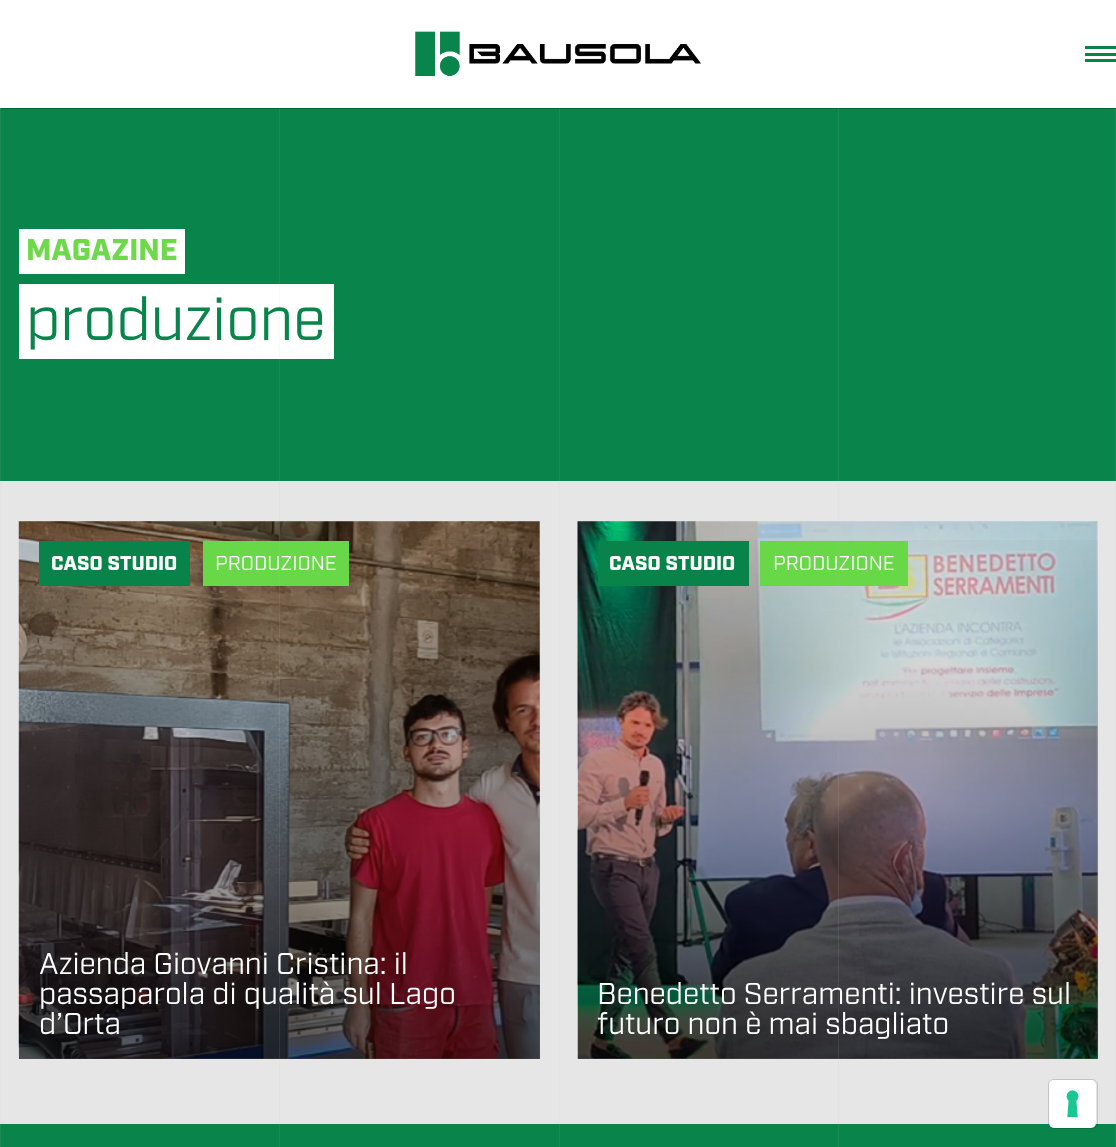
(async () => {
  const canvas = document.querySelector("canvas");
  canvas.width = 1116;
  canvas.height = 1147;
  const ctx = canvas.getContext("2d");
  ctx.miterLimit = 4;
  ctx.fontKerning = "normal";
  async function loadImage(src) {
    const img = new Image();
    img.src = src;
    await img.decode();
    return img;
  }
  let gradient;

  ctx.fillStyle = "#09844b";
  ctx.fillRect(0, 0, 1116, 1147);
  ctx.fillStyle = "#ffffff";
  ctx.fillRect(19, 284, 315, 75);
  ctx.fillStyle = "#e6e6e6";
  ctx.fillRect(1, 481, 1114, 643);
  ctx.drawImage(await loadImage("img/2.png"), 18, 521, 522, 538);
  gradient = ctx.createLinearGradient(279, 1059, 279, 521);
  gradient.addColorStop(0, "rgba(0, 0, 0, 0.61)");
  gradient.addColorStop(1, "rgba(0, 0, 0, 0)");
  ctx.fillStyle = gradient;
  ctx.fillRect(19, 540, 521, 519);
  ctx.fillStyle = "#69d848";
  ctx.fillRect(203, 541, 146, 45);
  ctx.fillStyle = "rgba(195, 195, 195, 0.1)";
  ctx.fillRect(279, 108, 1, 1039);
  ctx.drawImage(await loadImage("img/3.png"), 577, 521, 521, 538);
  gradient = ctx.createLinearGradient(838, 1059, 838, 521);
  gradient.addColorStop(0, "rgba(0, 0, 0, 0.61)");
  gradient.addColorStop(1, "rgba(0, 0, 0, 0)");
  ctx.fillStyle = gradient;
  ctx.fillRect(578, 540, 520, 519);
  for (const [x, y, w, h, color] of [
    [760, 541, 148, 45, "#69d848"],
    [838, 108, 1, 1039, "rgba(195, 195, 195, 0.1)"],
    [1115, 106, 1, 375, "#1c8a57"],
    [559, 106, 1, 375, "#1c8a57"],
    [0, 106, 1, 375, "#1c8a57"],
  ]) {
    ctx.fillStyle = color;
    ctx.fillRect(x, y, w, h);
  }
  ctx.fillStyle = "rgba(0, 0, 0, 0.25)";
  ctx.filter = "blur(0.5px)";
  ctx.beginPath();
  ctx.rect(1, 1, 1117, 108);
  ctx.fill();
  ctx.filter = "none";
  ctx.fillStyle = "#ffffff";
  ctx.fillRect(0, 0, 1116, 108);
  ctx.drawImage(await loadImage("img/1.png"), 415, 31, 287, 45);
  for (const [x, y, w, h, color] of [
    [1085, 46, 31, 3, "#0a834b"],
    [1085, 53, 31, 3, "#0a834b"],
    [1085, 59, 31, 3, "#0a834b"],
    [19, 229, 166, 45, "#ffffff"],
    [1115, 481, 1, 643, "#e3e3e3"],
    [559, 481, 1, 643, "#e3e3e3"],
    [0, 481, 1, 643, "#e3e3e3"],
    [39, 541, 151, 45, "#08844a"],
    [598, 541, 151, 45, "#08844a"],
    [1115, 1124, 1, 23, "#1c8a57"],
    [559, 1124, 1, 23, "#1c8a57"],
    [0, 1124, 1, 23, "#1c8a57"],
  ]) {
    ctx.fillStyle = color;
    ctx.fillRect(x, y, w, h);
  }
  ctx.beginPath();
  ctx.roundRect(1048.5, 1079.5, 49, 49, 5.5);
  ctx.strokeStyle = "rgba(0, 0, 0, 0.15)";
  ctx.stroke();
  ctx.fillStyle = "#ffffff";
  ctx.beginPath();
  ctx.roundRect(1049, 1080, 47, 48, 5);
  ctx.fill();
  ctx.drawImage(await loadImage("img/4.png"), 1066, 1090, 13, 28);
  ctx.font = "30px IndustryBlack";
  ctx.fillStyle = "#6dd94b";
  ctx.fillText("MAGAZINE", 26, 260);
  ctx.font = "60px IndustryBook";
  ctx.fillStyle = "#09844b";
  ctx.fillText("produzione", 26, 340);
  ctx.font = "20px IndustryBlack";
  ctx.fillStyle = "#ffffff";
  ctx.fillText("CASO STUDIO", 51, 570);
  ctx.font = "20px IndustryBook";
  ctx.fillText("PRODUZIONE", 215, 570);
  ctx.font = "30px IndustryBook";
  for (const [text, x, y] of [
    ["Azienda Giovanni Cristina: il", 39, 974],
    ["passaparola di qualità sul Lago", 39, 1004],
    ["d’Orta", 39, 1034],
  ]) {
    ctx.fillText(text, x, y);
  }
  ctx.font = "20px IndustryBlack";
  ctx.fillText("CASO STUDIO", 609, 570);
  ctx.font = "20px IndustryBook";
  ctx.fillText("PRODUZIONE", 773, 570);
  ctx.font = "30px IndustryBook";
  ctx.fillText("Benedetto Serramenti: investire sul", 597, 1004);
  ctx.fillText("futuro non è mai sbagliato", 597, 1034);
})();
